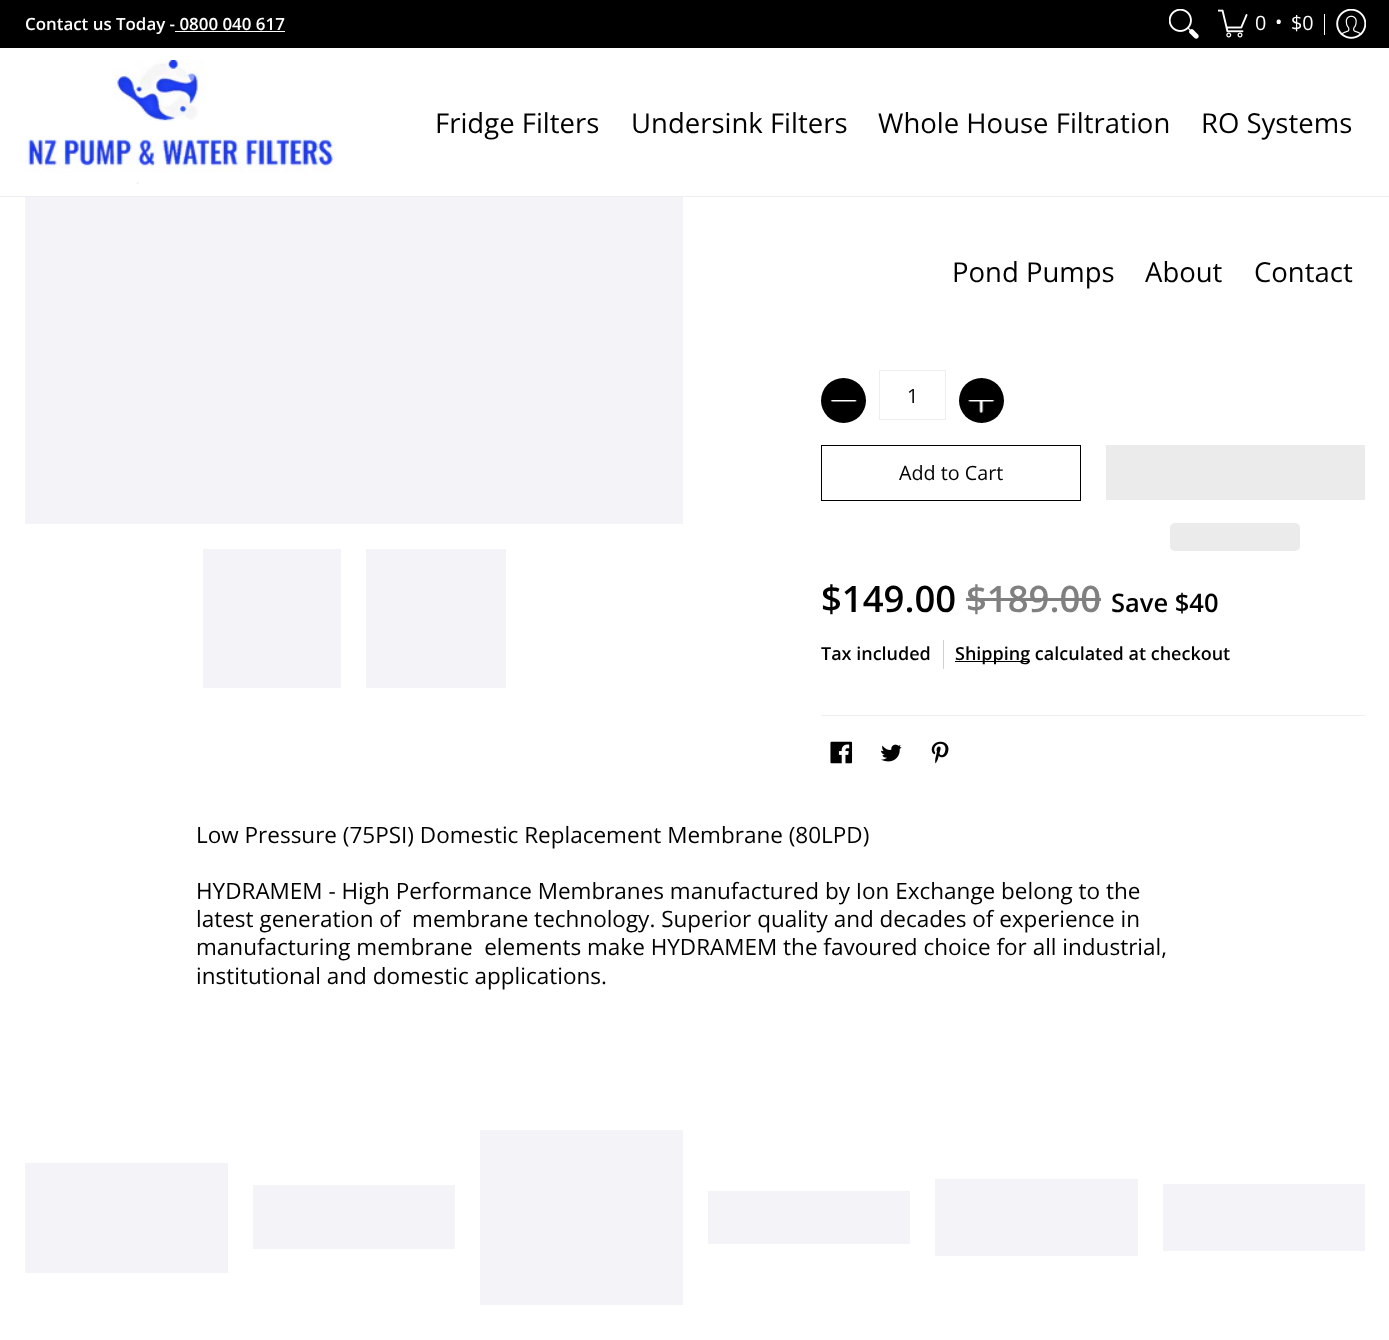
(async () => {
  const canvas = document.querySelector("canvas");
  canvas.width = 1389;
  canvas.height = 1340;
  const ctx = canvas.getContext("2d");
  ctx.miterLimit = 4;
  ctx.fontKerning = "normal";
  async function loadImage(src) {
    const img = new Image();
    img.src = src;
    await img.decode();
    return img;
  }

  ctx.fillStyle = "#ffffff";
  ctx.fillRect(0, 0, 1389, 1340);
  ctx.fillStyle = "#000000";
  ctx.fillRect(0, 0, 1389, 48);
  ctx.fillStyle = "#ffffff";
  ctx.fillRect(175, 31, 110, 1);
  ctx.drawImage(await loadImage("img/1.png"), 1169, 9, 30, 30);
  ctx.drawImage(await loadImage("img/2.png"), 1218, 9, 30, 29);
  ctx.fillRect(1324, 14, 1, 21);
  ctx.drawImage(await loadImage("img/3.png"), 1336, 9, 30, 30);
  ctx.fillStyle = "#edeef4";
  ctx.fillRect(0, 196, 1389, 1);
  ctx.drawImage(await loadImage("img/4.png"), 25, 60, 310, 124);
  for (const [x, y, w, h, color] of [
    [25, 197, 658, 327, "#f3f3f8"],
    [203, 549, 138, 139, "#f3f3f8"],
    [366, 549, 140, 139, "#f3f3f8"],
  ]) {
    ctx.fillStyle = color;
    ctx.fillRect(x, y, w, h);
  }
  ctx.fillStyle = "#000000";
  ctx.beginPath();
  ctx.arc(843.5, 400.5, 22.5, 0, Math.PI * 2);
  ctx.fill();
  ctx.drawImage(await loadImage("img/5.png"), 830, 400, 27, 2);
  ctx.strokeStyle = "#edeef4";
  ctx.strokeRect(879.5, 370.5, 66, 49);
  ctx.beginPath();
  ctx.arc(981.5, 400.5, 22.5, 0, Math.PI * 2);
  ctx.fill();
  ctx.drawImage(await loadImage("img/6.png"), 968, 400, 27, 14);
  ctx.strokeStyle = "#000000";
  ctx.strokeRect(821.5, 445.5, 259, 55);
  ctx.fillStyle = "#ebebeb";
  ctx.fillRect(1106, 445, 259, 55);
  ctx.beginPath();
  ctx.roundRect(1170, 523, 130, 28, 5);
  ctx.fill();
  for (const [x, y, w, h, color] of [
    [821, 715, 544, 1, "#edeef4"],
    [966, 598, 135, 3, "#808080"],
    [943, 640, 1, 29, "#cdd0e1"],
    [955, 661, 75, 1, "#000000"],
  ]) {
    ctx.fillStyle = color;
    ctx.fillRect(x, y, w, h);
  }
  ctx.drawImage(await loadImage("img/7.png"), 830, 741, 23, 23);
  ctx.drawImage(await loadImage("img/8.png"), 881, 744, 21, 18);
  ctx.drawImage(await loadImage("img/9.png"), 931, 741, 18, 23);
  for (const [x, y, w, h, color] of [
    [25, 1163, 203, 110, "#f3f3f8"],
    [253, 1185, 202, 64, "#f3f3f8"],
    [480, 1130, 203, 175, "#f3f3f8"],
    [708, 1191, 202, 53, "#f3f3f8"],
    [935, 1179, 203, 77, "#f3f3f8"],
    [1163, 1184, 202, 67, "#f3f3f8"],
  ]) {
    ctx.fillStyle = color;
    ctx.fillRect(x, y, w, h);
  }
  ctx.font = "600 16.9px Open Sans";
  ctx.fillStyle = "#ffffff";
  ctx.fillText("Contact us Today - 0800 040 617", 25, 30);
  ctx.font = "19.75px Open Sans";
  for (const [text, x, y] of [
    ["0", 1255, 30],
    ["•", 1275, 29],
    ["$0", 1291, 30],
  ]) {
    ctx.fillText(text, x, y);
  }
  ctx.font = "27.5px Open Sans";
  ctx.fillStyle = "#000000";
  for (const [text, x, y] of [
    ["Fridge Filters", 435, 133],
    ["Undersink Filters", 631, 133],
    ["Whole House Filtration", 878, 133],
    ["RO Systems", 1201, 133],
    ["Pond Pumps", 952, 282],
    ["About", 1145, 282],
    ["Contact", 1254, 282],
  ]) {
    ctx.fillText(text, x, y);
  }
  ctx.font = "19.75px Open Sans";
  ctx.fillText("1", 907, 403);
  ctx.fillText("Add to Cart", 899, 480);
  ctx.font = "600 36.5px Open Sans";
  ctx.fillText("$149.00", 821, 612);
  ctx.fillStyle = "#808080";
  ctx.fillText("$189.00", 966, 612);
  ctx.font = "600 25.5px Open Sans";
  ctx.fillStyle = "#000000";
  ctx.fillText("Save $40", 1111, 612);
  ctx.font = "600 18px Open Sans";
  ctx.fillText("Tax included", 821, 660);
  ctx.fillText("Shipping calculated at checkout", 955, 660);
  ctx.font = "22.5px Open Sans";
  for (const [text, x, y] of [
    ["Low Pressure (75PSI) Domestic Replacement Membrane (80LPD)", 196, 843],
    ["HYDRAMEM - High Performance Membranes manufactured by Ion Exchange belong to the", 196, 899],
    ["latest generation of  membrane technology. Superior quality and decades of experience in", 196, 927],
    ["manufacturing membrane  elements make HYDRAMEM the favoured choice for all industrial,", 196, 955],
    ["institutional and domestic applications.", 196, 984],
  ]) {
    ctx.fillText(text, x, y);
  }
})();
